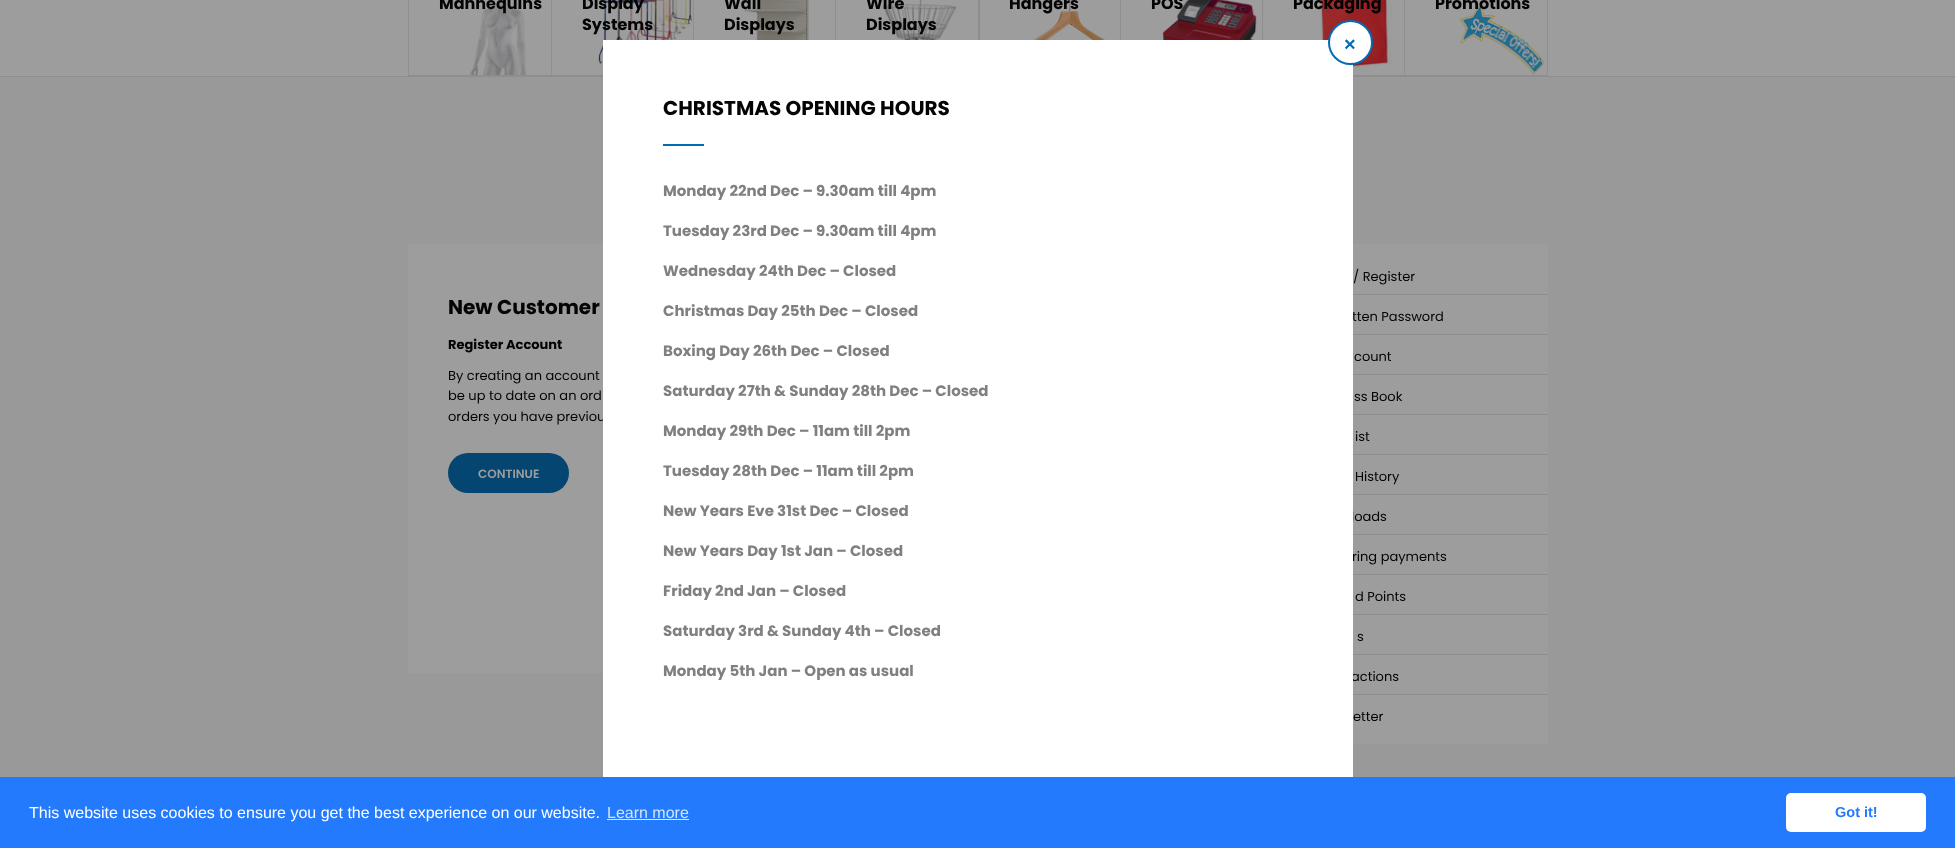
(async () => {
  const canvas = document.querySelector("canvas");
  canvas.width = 1955;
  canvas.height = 848;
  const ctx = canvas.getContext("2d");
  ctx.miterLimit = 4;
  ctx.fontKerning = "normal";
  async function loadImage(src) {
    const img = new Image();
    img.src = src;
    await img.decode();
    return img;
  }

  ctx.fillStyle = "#999999";
  ctx.fillRect(0, 0, 1955, 848);
  for (const [x, y, w, h, color] of [
    [0, 0, 1955, 76, "#9d9d9d"],
    [1547, 0, 1, 76, "#8e8e8e"],
    [408, 75, 1140, 1, "#8e8e8e"],
    [408, 0, 1, 76, "#8e8e8e"],
  ]) {
    ctx.fillStyle = color;
    ctx.fillRect(x, y, w, h);
  }
  ctx.drawImage(await loadImage("img/1.png"), 470, 0, 57, 75);
  ctx.fillRect(551, 0, 1, 75);
  ctx.drawImage(await loadImage("img/2.png"), 597, 0, 96, 71);
  ctx.fillRect(693, 0, 1, 40);
  ctx.drawImage(await loadImage("img/3.png"), 744, 0, 65, 40);
  ctx.fillRect(835, 0, 1, 40);
  ctx.drawImage(await loadImage("img/4.png"), 882, 0, 75, 40);
  ctx.fillRect(978, 0, 2, 40);
  ctx.drawImage(await loadImage("img/5.png"), 1033, 0, 73, 40);
  ctx.fillRect(1120, 0, 1, 40);
  ctx.drawImage(await loadImage("img/6.png"), 1162, 0, 100, 40);
  ctx.fillRect(1262, 0, 1, 40);
  ctx.drawImage(await loadImage("img/7.png"), 1319, 0, 74, 72);
  ctx.fillRect(1404, 0, 1, 75);
  ctx.drawImage(await loadImage("img/8.png"), 1459, 1, 86, 73);
  ctx.fillRect(0, 76, 1955, 1);
  ctx.fillStyle = "#9d9d9d";
  ctx.fillRect(408, 244, 195, 429);
  ctx.fillStyle = "#044571";
  ctx.beginPath();
  ctx.roundRect(448, 453, 121, 40, 20);
  ctx.fill();
  for (const [x, y, w, h, color] of [
    [1353, 244, 195, 500, "#9d9d9d"],
    [1353, 294, 195, 1, "#8e8e8e"],
    [1353, 334, 195, 1, "#8e8e8e"],
    [1353, 374, 195, 1, "#8e8e8e"],
    [1353, 414, 195, 1, "#8e8e8e"],
    [1353, 454, 195, 1, "#8e8e8e"],
    [1353, 494, 195, 1, "#8e8e8e"],
    [1353, 534, 195, 1, "#8e8e8e"],
    [1353, 574, 195, 1, "#8e8e8e"],
    [1353, 614, 195, 1, "#8e8e8e"],
    [1353, 654, 195, 1, "#8e8e8e"],
    [1353, 694, 195, 1, "#8e8e8e"],
    [0, 777, 1955, 71, "#237afc"],
    [607, 819, 82, 1, "#d3e4fe"],
  ]) {
    ctx.fillStyle = color;
    ctx.fillRect(x, y, w, h);
  }
  ctx.fillStyle = "#ffffff";
  ctx.beginPath();
  ctx.roundRect(1786, 793, 140, 39, 5);
  ctx.fill();
  ctx.font = "bold 16px Poppins";
  ctx.fillStyle = "#040404";
  for (const [text, x, y] of [
    ["Mannequins", 439, 9],
    ["Display", 582, 9],
    ["Systems", 582, 30],
    ["Wall", 724, 9],
    ["Displays", 724, 30],
    ["Wire", 866, 9],
    ["Displays", 866, 30],
    ["Hangers", 1009, 9],
    ["POS", 1151, 9],
    ["Packaging", 1293, 9],
    ["Promotions", 1435, 9],
  ]) {
    ctx.fillText(text, x, y);
  }
  ctx.font = "bold 20px Poppins";
  ctx.fillText("New Customer", 448, 314);
  ctx.font = "bold 13px Poppins";
  ctx.fillText("Register Account", 448, 349);
  ctx.font = "13px Poppins";
  for (const [text, x, y] of [
    ["By creating an account", 448, 380],
    ["be up to date on an ord", 448, 400],
    ["orders you have previou", 448, 421],
  ]) {
    ctx.fillText(text, x, y);
  }
  ctx.font = "600 12px Poppins";
  ctx.fillStyle = "#9d9d9d";
  ctx.fillText("CONTINUE", 478, 478);
  ctx.font = "13px Poppins";
  ctx.fillStyle = "#040404";
  for (const [text, x, y] of [
    ["/ Register", 1353, 281],
    ["tten Password", 1352, 321],
    ["count", 1354, 361],
    ["ss Book", 1354, 401],
    ["ist", 1355, 441],
    ["History", 1355, 481],
    ["loads", 1351, 521],
    ["ring payments", 1352, 561],
    ["d Points", 1355, 601],
    ["s", 1357, 641],
    ["actions", 1351, 681],
    ["etter", 1353, 721],
  ]) {
    ctx.fillText(text, x, y);
  }
  ctx.fillStyle = "#ffffff";
  ctx.fillRect(603, 40, 750, 737);
  ctx.beginPath();
  ctx.arc(1350.5, 42.5, 21.5, 0, Math.PI * 2);
  ctx.fill();
  ctx.strokeStyle = "#006cb5";
  ctx.lineWidth = 2;
  ctx.stroke();
  ctx.font = "bold 20px Liberation Sans";
  ctx.fillStyle = "#006cb5";
  ctx.fillText("×", 1344, 51);
  ctx.font = "bold 20px Poppins";
  ctx.fillStyle = "#040404";
  ctx.fillText("CHRISTMAS OPENING HOURS", 663, 115);
  ctx.fillStyle = "#006cb5";
  ctx.fillRect(663, 144, 41, 2);
  ctx.font = "bold 15px Poppins";
  ctx.fillStyle = "#808080";
  for (const [text, x, y] of [
    ["Monday 22nd Dec – 9.30am till 4pm", 663, 196],
    ["Tuesday 23rd Dec – 9.30am till 4pm", 663, 236],
    ["Wednesday 24th Dec – Closed", 663, 276],
    ["Christmas Day 25th Dec – Closed", 663, 316],
    ["Boxing Day 26th Dec – Closed", 663, 356],
    ["Saturday 27th & Sunday 28th Dec – Closed", 663, 396],
    ["Monday 29th Dec – 11am till 2pm", 663, 436],
    ["Tuesday 28th Dec – 11am till 2pm", 663, 476],
    ["New Years Eve 31st Dec – Closed", 663, 516],
    ["New Years Day 1st Jan – Closed", 663, 556],
    ["Friday 2nd Jan – Closed", 663, 596],
    ["Saturday 3rd & Sunday 4th – Closed", 663, 636],
    ["Monday 5th Jan – Open as usual", 663, 676],
  ]) {
    ctx.fillText(text, x, y);
  }
  ctx.font = "16px Liberation Sans";
  ctx.fillStyle = "#ffffff";
  ctx.fillText("This website uses cookies to ensure you get the best experience on our website.", 29, 818);
  ctx.fillStyle = "#d3e4fe";
  ctx.fillText("Learn more", 607, 818);
  ctx.font = "bold 14.5px Liberation Sans";
  ctx.fillStyle = "#237afc";
  ctx.fillText("Got it!", 1835, 817);
})();
